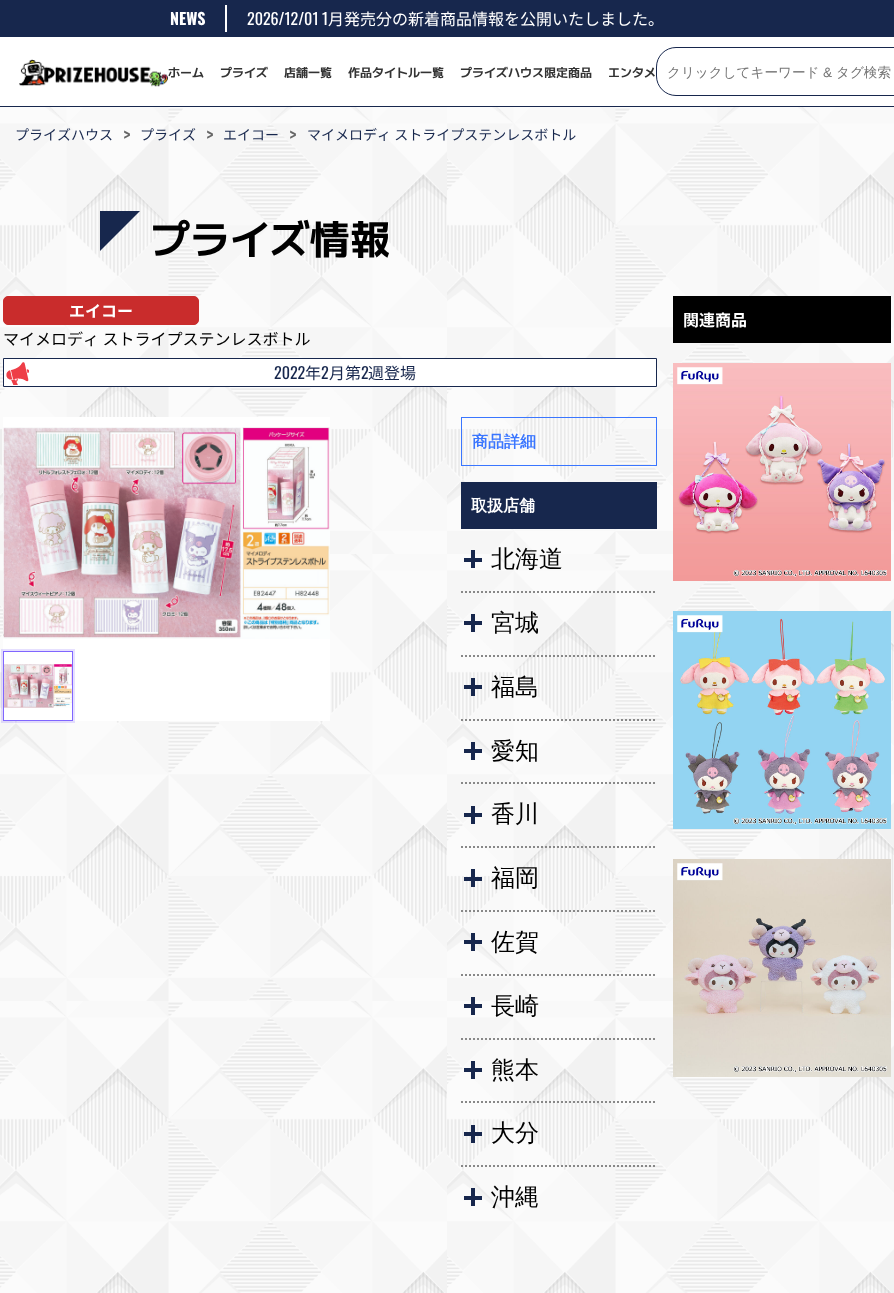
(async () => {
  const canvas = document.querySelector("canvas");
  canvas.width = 894;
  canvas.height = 1293;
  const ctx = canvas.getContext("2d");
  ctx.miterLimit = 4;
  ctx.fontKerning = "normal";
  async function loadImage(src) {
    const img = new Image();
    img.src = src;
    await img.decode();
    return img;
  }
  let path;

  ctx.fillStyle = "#ffffff";
  ctx.fillRect(0, 0, 894, 1293);
  for (const [x, y, w, h, color] of [
    [0, 0, 894, 37, "#17274d"],
    [225, 5, 2, 27, "#ffffff"],
    [0, 106, 894, 1, "#17274d"],
  ]) {
    ctx.fillStyle = color;
    ctx.fillRect(x, y, w, h);
  }
  ctx.drawImage(await loadImage("img/1.png"), 19, 59, 149, 28);
  ctx.beginPath();
  ctx.roundRect(656.5, 47.5, 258, 48, 19.5);
  ctx.strokeStyle = "#17274d";
  ctx.stroke();
  ctx.fillStyle = "#fafafa";
  ctx.fillRect(0, 107, 894, 1186);
  ctx.drawImage(await loadImage("img/2.png"), 0, 107, 894, 1186);
  ctx.fillStyle = "#17274d";
  path = new Path2D("M100 251V211H140Z");
  ctx.fill(path);
  ctx.fillStyle = "#c92c2c";
  ctx.beginPath();
  ctx.roundRect(3.5, 296.5, 195, 28, 4.5);
  ctx.fill();
  ctx.strokeStyle = "#c92c2c";
  ctx.stroke();
  ctx.fillStyle = "#ffffff";
  ctx.beginPath();
  ctx.rect(3.5, 358.5, 653, 28);
  ctx.fill();
  ctx.strokeStyle = "#17274d";
  ctx.stroke();
  ctx.drawImage(await loadImage("img/3.png"), 6, 362, 23, 23);
  ctx.fillRect(3, 417, 327, 304);
  ctx.drawImage(await loadImage("img/4.png"), 3, 427, 327, 212);
  ctx.strokeStyle = "rgba(128, 102, 255, 0.2)";
  ctx.lineWidth = 2;
  ctx.strokeRect(2, 650, 72, 72);
  ctx.strokeStyle = "#8066ff";
  ctx.lineWidth = 1;
  ctx.strokeRect(3.5, 651.5, 69, 69);
  ctx.drawImage(await loadImage("img/5.png"), 4, 664, 68, 44);
  ctx.strokeStyle = "#3a76ff";
  ctx.strokeRect(461.5, 417.5, 195, 48);
  for (const [x, y, w, h, color] of [
    [461, 482, 196, 47, "#17274d"],
    [471, 550, 4, 18, "#17274d"],
    [464, 558, 18, 4, "#17274d"],
  ]) {
    ctx.fillStyle = color;
    ctx.fillRect(x, y, w, h);
  }
  path = new Path2D("M461 592H657");
  ctx.strokeStyle = "#888888";
  ctx.lineWidth = 2;
  ctx.setLineDash([2, 2]);
  ctx.stroke(path);
  ctx.fillRect(471, 614, 4, 18);
  ctx.fillRect(464, 621, 18, 4);
  path = new Path2D("M461 656H657");
  ctx.stroke(path);
  ctx.fillRect(471, 678, 4, 18);
  ctx.fillRect(464, 685, 18, 4);
  path = new Path2D("M461 720H657");
  ctx.stroke(path);
  ctx.fillRect(471, 742, 4, 18);
  ctx.fillRect(464, 749, 18, 4);
  path = new Path2D("M461 783H657");
  ctx.stroke(path);
  ctx.fillRect(471, 806, 4, 18);
  ctx.fillRect(464, 813, 18, 4);
  path = new Path2D("M461 847H657");
  ctx.stroke(path);
  ctx.fillRect(471, 869, 4, 18);
  ctx.fillRect(464, 877, 18, 4);
  path = new Path2D("M461 911H657");
  ctx.stroke(path);
  ctx.fillRect(471, 933, 4, 18);
  ctx.fillRect(464, 940, 18, 4);
  path = new Path2D("M461 975H657");
  ctx.stroke(path);
  ctx.fillRect(471, 997, 4, 18);
  ctx.fillRect(464, 1004, 18, 4);
  path = new Path2D("M461 1039H657");
  ctx.stroke(path);
  ctx.fillRect(471, 1061, 4, 18);
  ctx.fillRect(464, 1068, 18, 4);
  path = new Path2D("M461 1102H657");
  ctx.stroke(path);
  ctx.fillRect(471, 1125, 4, 18);
  ctx.fillRect(464, 1132, 18, 4);
  path = new Path2D("M461 1166H657");
  ctx.stroke(path);
  for (const [x, y, w, h, color] of [
    [471, 1188, 4, 18, "#17274d"],
    [464, 1196, 18, 4, "#17274d"],
    [673, 296, 218, 47, "#000000"],
  ]) {
    ctx.fillStyle = color;
    ctx.fillRect(x, y, w, h);
  }
  ctx.drawImage(await loadImage("img/6.png"), 673, 363, 218, 218);
  ctx.drawImage(await loadImage("img/7.png"), 673, 611, 218, 218);
  ctx.drawImage(await loadImage("img/8.png"), 673, 859, 218, 218);
  ctx.font = "bold 16px Oswald";
  ctx.fillStyle = "#ffffff";
  ctx.fillText("NEWS", 170, 25);
  ctx.font = "16px Oswald";
  ctx.fillText("2026/12/01 1", 247, 25);
  ctx.font = "16px Noto Sans JP";
  ctx.fillText("月発売分の新着商品情報を公開いたしました。", 328, 25);
  ctx.font = "bold 12px 'M PLUS 1'";
  ctx.fillStyle = "#333333";
  for (const [text, x, y] of [
    ["ホーム", 168, 77],
    ["プライズ", 220, 77],
    ["店舗一覧", 284, 77],
    ["作品タイトル一覧", 348, 77],
    ["プライズハウス限定商品", 460, 77],
    ["エンタメ", 608, 77],
  ]) {
    ctx.fillText(text, x, y);
  }
  ctx.font = "500 13.6px WenQuanYi Zen Hei";
  ctx.fillStyle = "#757575";
  ctx.fillText("クリックしてキーワード", 667, 77);
  ctx.font = "13.6px Liberation Sans";
  ctx.fillText("&", 823, 77);
  ctx.font = "500 13.6px WenQuanYi Zen Hei";
  ctx.fillText("タグ検索", 836, 77);
  ctx.font = "14px Noto Sans JP";
  ctx.fillStyle = "#17274d";
  ctx.fillText("プライズハウス", 15, 140);
  ctx.font = "20px Oswald";
  ctx.fillStyle = "#666666";
  ctx.fillText(">", 123, 143);
  ctx.font = "14px Noto Sans JP";
  ctx.fillStyle = "#17274d";
  ctx.fillText("プライズ", 140, 140);
  ctx.font = "20px Oswald";
  ctx.fillStyle = "#666666";
  ctx.fillText(">", 206, 143);
  ctx.font = "14px Noto Sans JP";
  ctx.fillStyle = "#17274d";
  ctx.fillText("エイコー", 223, 140);
  ctx.font = "20px Oswald";
  ctx.fillStyle = "#666666";
  ctx.fillText(">", 289, 143);
  ctx.font = "14px Noto Sans JP";
  ctx.fillStyle = "#17274d";
  ctx.fillText("マイメロディ ストライプステンレスボトル", 307, 140);
  ctx.font = "bold 40px 'M PLUS 1'";
  ctx.fillStyle = "#000000";
  ctx.fillText("プライズ情報", 150, 254);
  ctx.font = "bold 16px Noto Sans JP";
  ctx.fillStyle = "#ffffff";
  ctx.fillText("エイコー", 69, 317);
  ctx.font = "16px Noto Sans JP";
  ctx.fillStyle = "#000000";
  ctx.fillText("マイメロディ ストライプステンレスボトル", 3, 345);
  ctx.font = "16px Oswald";
  ctx.fillStyle = "#17274d";
  ctx.fillText("2022", 274, 379);
  ctx.font = "16px Noto Sans JP";
  ctx.fillText("年", 305, 379);
  ctx.font = "16px Oswald";
  ctx.fillText("2", 321, 379);
  ctx.font = "16px Noto Sans JP";
  ctx.fillText("月第", 329, 379);
  ctx.font = "16px Oswald";
  ctx.fillText("2", 361, 379);
  ctx.font = "16px Noto Sans JP";
  ctx.fillText("週登場", 368, 379);
  ctx.font = "bold 16px WenQuanYi Zen Hei";
  ctx.fillStyle = "#3a76ff";
  ctx.fillText("商品詳細", 472, 447);
  ctx.fillStyle = "#ffffff";
  ctx.fillText("取扱店舗", 471, 511);
  ctx.font = "500 24px WenQuanYi Zen Hei";
  ctx.fillStyle = "#000000";
  for (const [text, x, y] of [
    ["北海道", 491, 567],
    ["宮城", 491, 631],
    ["福島", 491, 695],
    ["愛知", 491, 759],
    ["香川", 491, 822],
    ["福岡", 491, 886],
    ["佐賀", 491, 950],
    ["長崎", 491, 1014],
    ["熊本", 491, 1078],
    ["大分", 491, 1141],
    ["沖縄", 491, 1205],
  ]) {
    ctx.fillText(text, x, y);
  }
  ctx.font = "bold 16px Noto Sans JP";
  ctx.fillStyle = "#ffffff";
  ctx.fillText("関連商品", 683, 326);
})();
